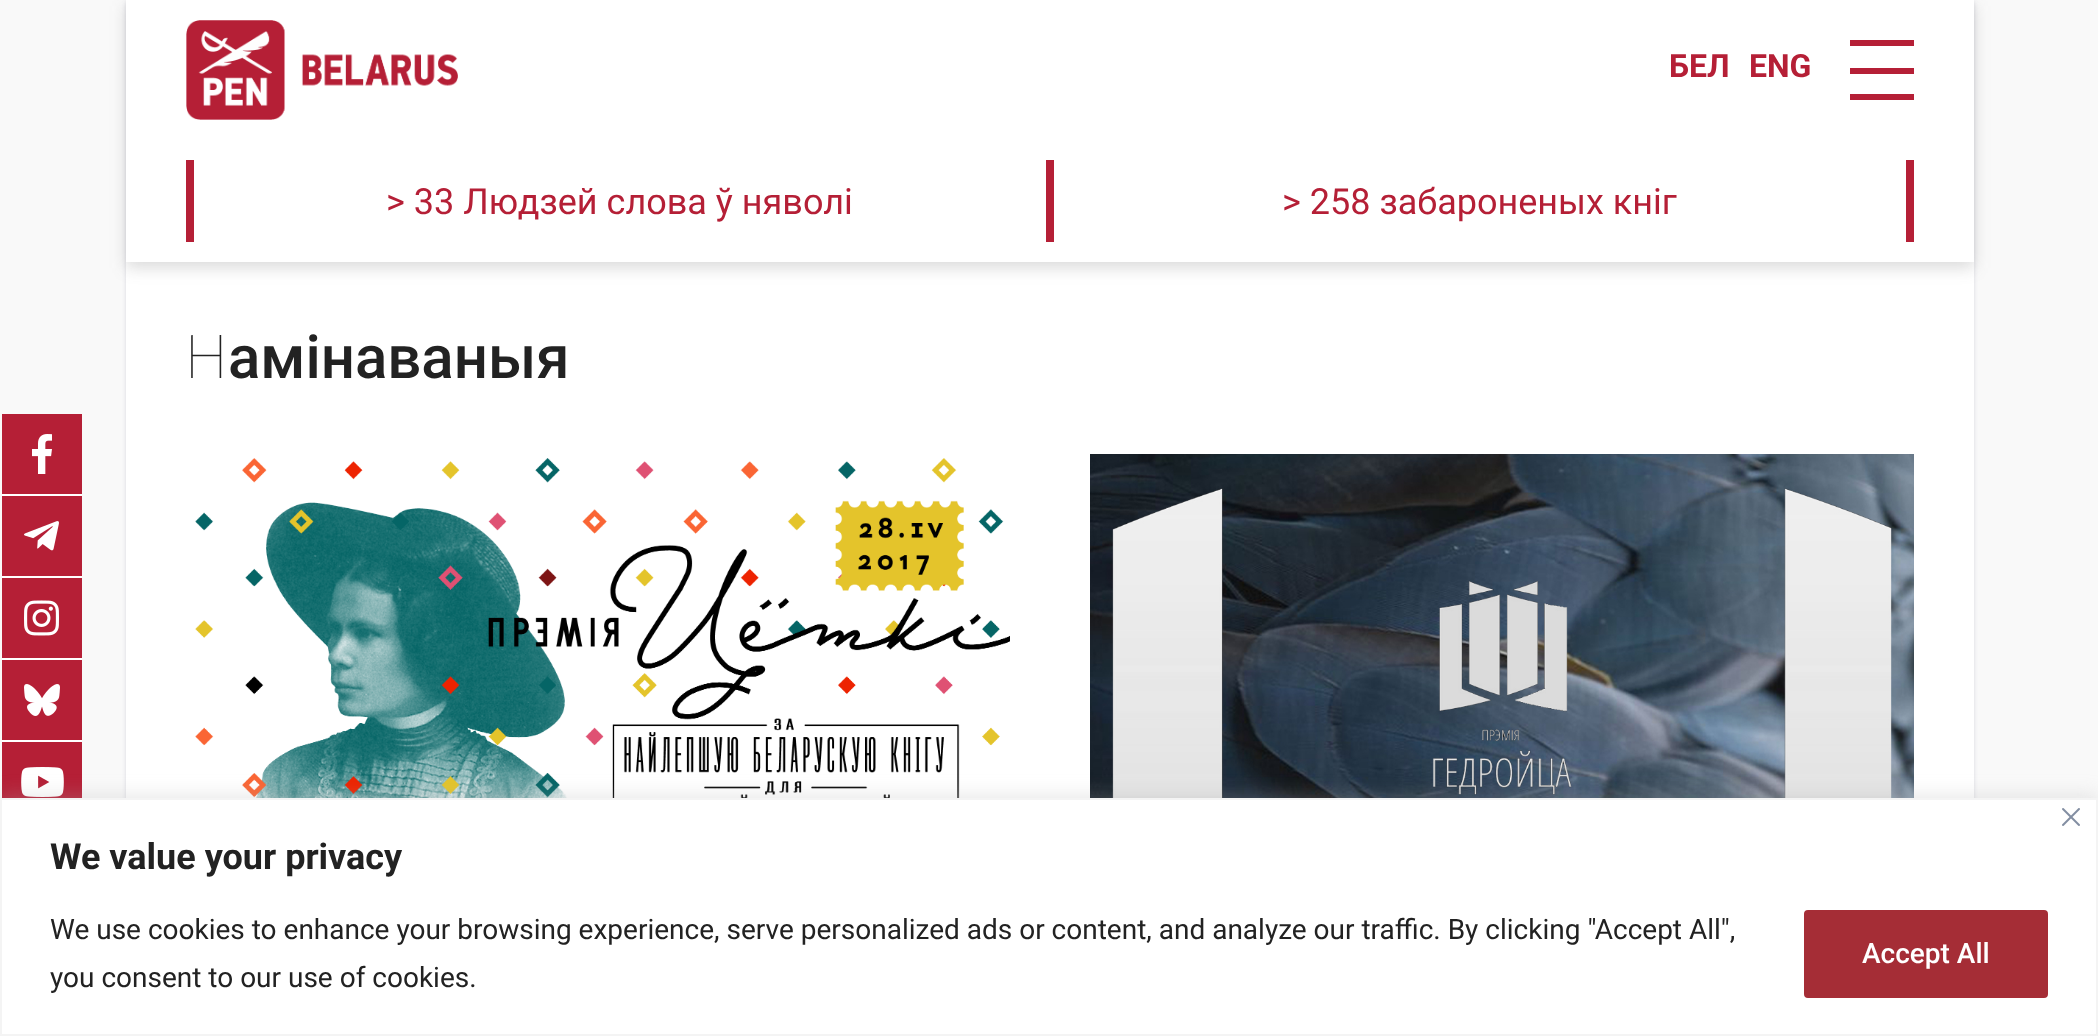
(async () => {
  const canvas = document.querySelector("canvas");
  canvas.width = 2098;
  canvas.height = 1036;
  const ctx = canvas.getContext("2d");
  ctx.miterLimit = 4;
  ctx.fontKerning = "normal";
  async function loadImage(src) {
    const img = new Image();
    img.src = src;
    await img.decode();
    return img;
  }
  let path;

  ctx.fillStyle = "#f9f9f9";
  ctx.fillRect(0, 0, 2098, 1036);
  ctx.fillStyle = "rgba(41, 39, 89, 0.15)";
  ctx.filter = "blur(2px)";
  ctx.beginPath();
  ctx.rect(126, 2, 1848, 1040);
  ctx.fill();
  ctx.filter = "none";
  ctx.fillStyle = "#ffffff";
  ctx.fillRect(126, 0, 1848, 798);
  ctx.save();
  path = new Path2D("M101 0H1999V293H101ZM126 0H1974V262H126Z");
  ctx.clip(path, "evenodd");
  ctx.fillStyle = "rgba(77, 77, 77, 0.2)";
  ctx.filter = "blur(8px)";
  ctx.beginPath();
  ctx.rect(126, 6, 1848, 262);
  ctx.fill();
  ctx.filter = "none";
  ctx.restore();
  ctx.drawImage(await loadImage("img/1.png"), 186, 20, 272, 100);
  for (const [x, y, w, h, color] of [
    [1850, 40, 64, 6, "#b51f36"],
    [1850, 68, 64, 6, "#b51f36"],
    [1850, 94, 64, 6, "#b51f36"],
    [1046, 160, 8, 82, "#b51f36"],
    [186, 160, 8, 82, "#b51f36"],
    [1906, 160, 8, 82, "#b51f36"],
  ]) {
    ctx.fillStyle = color;
    ctx.fillRect(x, y, w, h);
  }
  ctx.drawImage(await loadImage("img/2.png"), 186, 454, 824, 344);
  ctx.drawImage(await loadImage("img/3.png"), 1090, 454, 824, 344);
  ctx.fillStyle = "#ffffff";
  ctx.fillRect(2, 494, 80, 2);
  ctx.fillStyle = "#b51f36";
  ctx.fillRect(2, 414, 80, 80);
  ctx.drawImage(await loadImage("img/4.png"), 32, 434, 20, 40);
  ctx.fillStyle = "#ffffff";
  ctx.fillRect(2, 576, 80, 2);
  ctx.fillStyle = "#b51f36";
  ctx.fillRect(2, 496, 80, 80);
  ctx.drawImage(await loadImage("img/5.png"), 24, 521, 35, 30);
  ctx.fillStyle = "#ffffff";
  ctx.fillRect(2, 658, 80, 2);
  ctx.fillStyle = "#b51f36";
  ctx.fillRect(2, 578, 80, 80);
  ctx.drawImage(await loadImage("img/6.png"), 24, 600, 35, 36);
  ctx.fillStyle = "#ffffff";
  ctx.fillRect(2, 740, 80, 2);
  ctx.fillStyle = "#b51f36";
  ctx.fillRect(2, 660, 80, 80);
  ctx.drawImage(await loadImage("img/7.png"), 24, 684, 36, 32);
  ctx.fillRect(2, 742, 80, 56);
  ctx.drawImage(await loadImage("img/8.png"), 21, 767, 43, 30);
  ctx.fillStyle = "rgba(172, 171, 171, 0.3)";
  ctx.filter = "blur(10px)";
  ctx.beginPath();
  ctx.rect(0, 796, 2098, 238);
  ctx.fill();
  ctx.filter = "none";
  ctx.fillStyle = "#ffffff";
  ctx.beginPath();
  ctx.rect(1, 799, 2096, 236);
  ctx.fill();
  ctx.strokeStyle = "#f4f4f4";
  ctx.lineWidth = 2;
  ctx.stroke();
  ctx.drawImage(await loadImage("img/9.png"), 2062, 808, 18, 18);
  ctx.fillStyle = "#a52d36";
  ctx.beginPath();
  ctx.roundRect(1806, 912, 240, 84, 2);
  ctx.fill();
  ctx.strokeStyle = "#a52d36";
  ctx.lineWidth = 4;
  ctx.stroke();
  ctx.font = "bold 32px Roboto";
  ctx.fillStyle = "#b51f36";
  ctx.fillText("БЕЛ", 1669, 77);
  ctx.fillText("ENG", 1749, 77);
  ctx.font = "36px Roboto";
  ctx.fillText("> 33 Людзей слова ў няволі", 386, 214);
  ctx.fillText("> 258 забароненых кніг", 1282, 214);
  ctx.font = "100 60px Noto Sans";
  ctx.fillStyle = "#222222";
  ctx.fillText("Н", 185, 378);
  ctx.font = "500 60px Roboto";
  ctx.fillText("амінаваныя", 228, 378);
  ctx.font = "bold 36px Roboto";
  ctx.fillText("We value your privacy", 50, 869);
  ctx.font = "28px Roboto";
  ctx.fillText("We use cookies to enhance your browsing experience, serve personalized ads or content, and analyze our traffic. By clicking \"Accept All\",", 50, 939);
  ctx.fillText("you consent to our use of cookies.", 50, 987);
  ctx.font = "500 28px Roboto";
  ctx.fillStyle = "#ffffff";
  ctx.fillText("Accept All", 1862, 963);
})();
